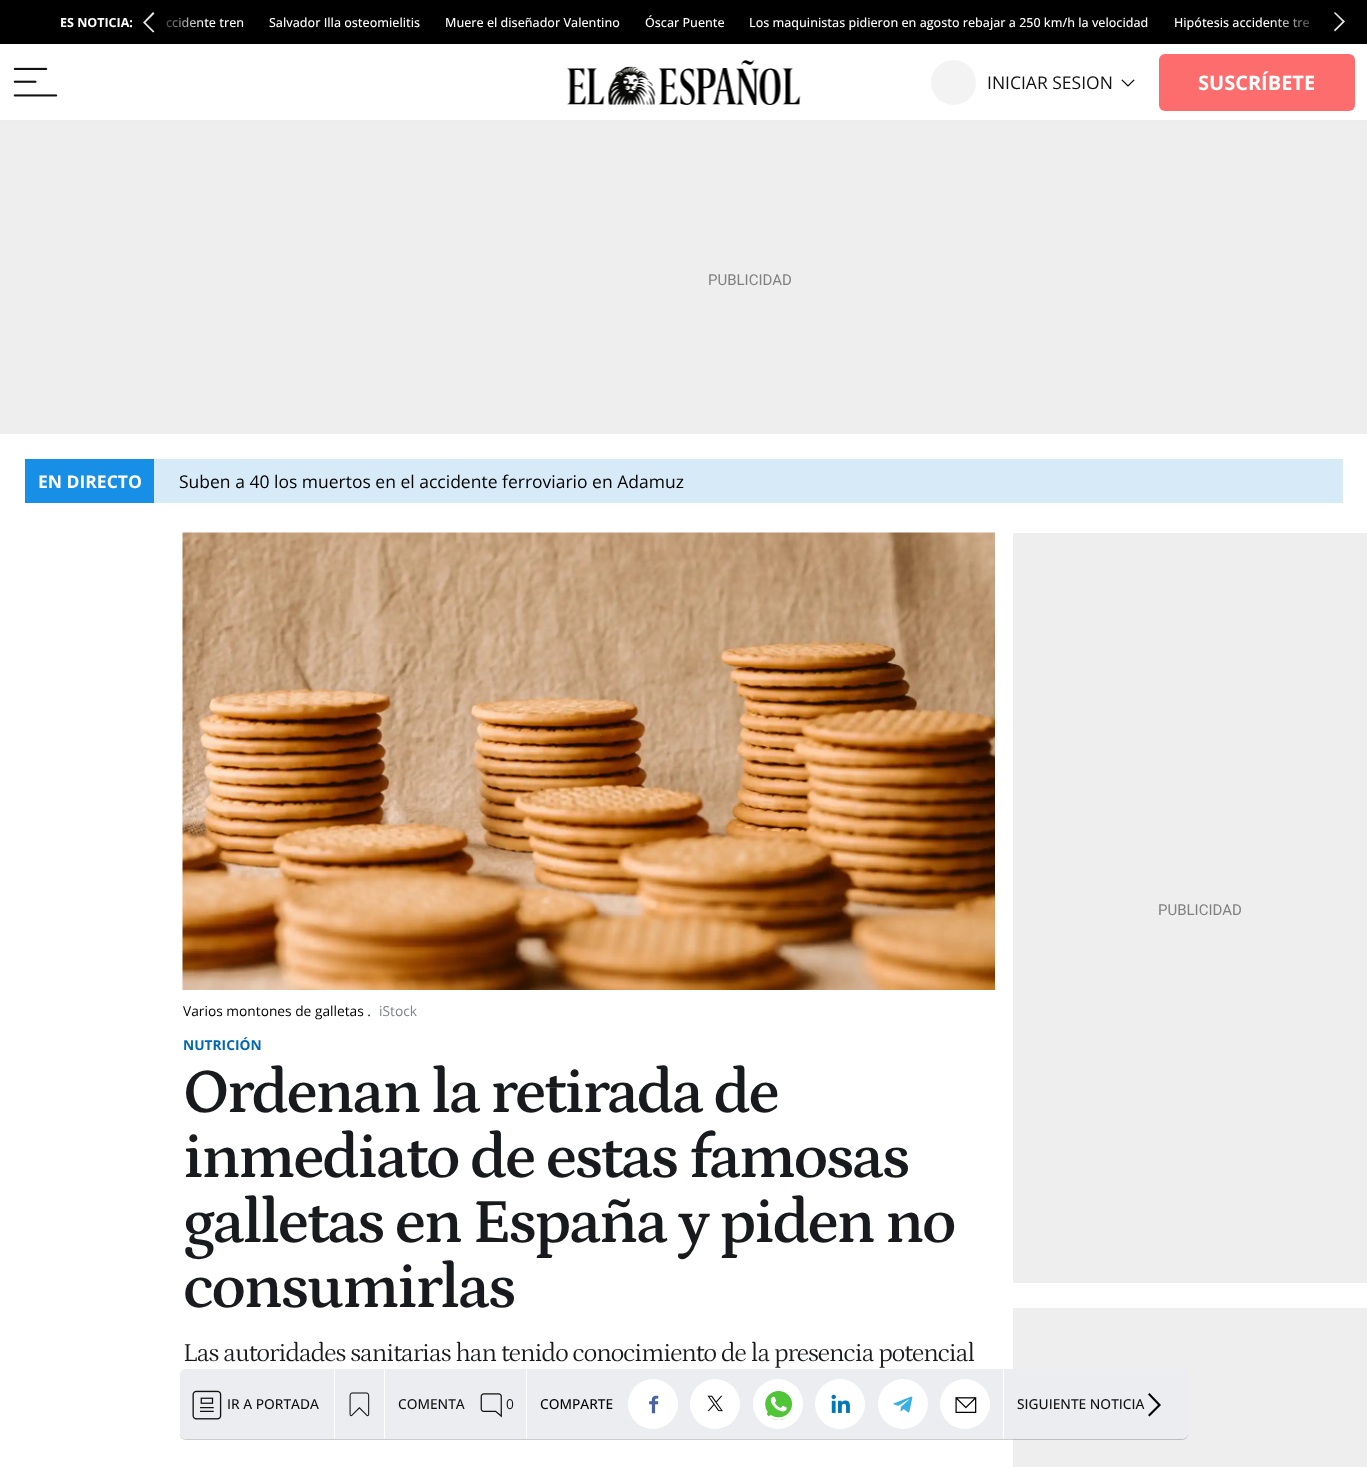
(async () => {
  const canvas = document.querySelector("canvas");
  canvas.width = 1367;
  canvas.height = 1467;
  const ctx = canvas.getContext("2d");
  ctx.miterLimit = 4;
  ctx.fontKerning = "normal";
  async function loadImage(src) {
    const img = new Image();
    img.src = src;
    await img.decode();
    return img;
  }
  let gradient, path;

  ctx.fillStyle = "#ffffff";
  ctx.fillRect(0, 0, 1367, 1467);
  ctx.fillStyle = "#000000";
  ctx.fillRect(0, 0, 1367, 44);
  ctx.fillStyle = "#e6e6e6";
  path = new Path2D("M145.5 22.5L154.5 31.5L153 32.5L143 22.5L153 12L154.5 13.5Z");
  ctx.fill(path);
  path = new Path2D("M1342.5 21.5L1334 13L1335 12L1345 21.5L1335 31.5L1334 30Z");
  ctx.fill(path);
  ctx.drawImage(await loadImage("img/1.png"), 13, 67, 45, 30);
  ctx.drawImage(await loadImage("img/2.png"), 567, 60, 234, 45);
  ctx.fillStyle = "#f3f3f3";
  ctx.beginPath();
  ctx.arc(953.5, 82.5, 22.5, 0, Math.PI * 2);
  ctx.fill();
  ctx.drawImage(await loadImage("img/3.png"), 1121, 79, 14, 8);
  ctx.fillStyle = "#fd6d6d";
  ctx.beginPath();
  ctx.roundRect(1159, 54, 196, 57, 6);
  ctx.fill();
  for (const [x, y, w, h, color] of [
    [0, 120, 1367, 1, "#ececec"],
    [0, 121, 1367, 313, "#eeeeee"],
    [154, 459, 1189, 44, "#d7eaf8"],
    [25, 459, 129, 44, "#178fe6"],
    [1013, 533, 354, 750, "#eeeeee"],
    [1013, 1308, 354, 159, "#eeeeee"],
  ]) {
    ctx.fillStyle = color;
    ctx.fillRect(x, y, w, h);
  }
  ctx.drawImage(await loadImage("img/4.png"), 182, 532, 813, 458);
  ctx.fillStyle = "rgba(0, 0, 0, 0.2)";
  path = new Path2D("M180 1432V1434C180 1437 183 1440 186 1440H1182C1185 1440 1188 1437 1188 1434V1376L1187 1373L1188 1432C1188 1436 1185 1439 1181 1439H186C183 1439 180 1436 180 1432Z");
  ctx.fill(path);
  ctx.fillStyle = "#ebedf1";
  ctx.beginPath();
  ctx.roundRect(180, 1369, 1008, 70, 6);
  ctx.fill();
  ctx.fillStyle = "#ffffff";
  ctx.fillRect(334, 1369, 1, 70);
  ctx.drawImage(await loadImage("img/5.png"), 192, 1390, 30, 30);
  ctx.fillRect(384, 1369, 1, 70);
  ctx.drawImage(await loadImage("img/6.png"), 349, 1392, 21, 25);
  ctx.fillRect(526, 1369, 1, 70);
  ctx.drawImage(await loadImage("img/7.png"), 480, 1393, 22, 25);
  ctx.beginPath();
  ctx.arc(653, 1404, 25, 0, Math.PI * 2);
  ctx.fill();
  ctx.drawImage(await loadImage("img/8.png"), 649, 1395, 10, 19);
  ctx.beginPath();
  ctx.arc(715, 1404, 25, 0, Math.PI * 2);
  ctx.fill();
  ctx.drawImage(await loadImage("img/9.png"), 707, 1395, 16, 17);
  ctx.beginPath();
  ctx.arc(778, 1404, 25, 0, Math.PI * 2);
  ctx.fill();
  ctx.fillStyle = "#50c538";
  ctx.beginPath();
  ctx.arc(778.5, 1405.5, 14.5, 0, Math.PI * 2);
  ctx.fill();
  ctx.drawImage(await loadImage("img/10.png"), 764, 1391, 29, 29);
  ctx.fillStyle = "#ffffff";
  ctx.beginPath();
  ctx.arc(840, 1404, 25, 0, Math.PI * 2);
  ctx.fill();
  ctx.drawImage(await loadImage("img/11.png"), 831, 1394, 19, 19);
  ctx.beginPath();
  ctx.arc(903, 1404, 25, 0, Math.PI * 2);
  ctx.fill();
  ctx.drawImage(await loadImage("img/12.png"), 893, 1396, 20, 17);
  ctx.beginPath();
  ctx.arc(965, 1404, 25, 0, Math.PI * 2);
  ctx.fill();
  ctx.drawImage(await loadImage("img/13.png"), 955, 1397, 22, 16);
  ctx.fillRect(1003, 1369, 1, 70);
  ctx.fillStyle = "#000000";
  path = new Path2D("M1158 1405L1148 1394.5L1149.5 1393L1161 1405L1149.5 1416.5L1148 1415Z");
  ctx.fill(path);
  ctx.font = "bold 12.5px Open Sans";
  ctx.fillStyle = "#ffffff";
  ctx.fillText("ES NOTICIA:", 60, 27);
  ctx.font = "500 12.5px Open Sans";
  ctx.fillText("ccidente tren", 166, 27);
  gradient = ctx.createLinearGradient(156, 23, 206, 23);
  gradient.addColorStop(0, "rgba(0, 0, 0, 0.9)");
  gradient.addColorStop(1, "rgba(0, 0, 0, 0)");
  ctx.fillStyle = gradient;
  ctx.fillRect(166, 17, 39, 11);
  ctx.fillStyle = "#ffffff";
  for (const [text, x, y] of [
    ["Salvador Illa osteomielitis", 269, 27],
    ["Muere el diseñador Valentino", 445, 27],
    ["Óscar Puente", 645, 27],
    ["Los maquinistas pidieron en agosto rebajar a 250 km/h la velocidad", 749, 27],
    ["Hipótesis accidente tre", 1174, 27],
  ]) {
    ctx.fillText(text, x, y);
  }
  gradient = ctx.createLinearGradient(1270, 22, 1320, 22);
  gradient.addColorStop(0, "rgba(0, 0, 0, 0)");
  gradient.addColorStop(1, "rgba(0, 0, 0, 0.9)");
  ctx.fillStyle = gradient;
  ctx.fillRect(1271, 18, 38, 10);
  ctx.font = "17.5px Open Sans";
  ctx.fillStyle = "#111111";
  ctx.fillText("INICIAR SESION", 987, 89);
  ctx.font = "bold 20px Open Sans";
  ctx.fillStyle = "#ffffff";
  ctx.fillText("SUSCRÍBETE", 1198, 90);
  ctx.font = "15px Roboto";
  ctx.fillStyle = "#808080";
  ctx.fillText("PUBLICIDAD", 708, 285);
  ctx.font = "bold 17.5px Open Sans";
  ctx.fillStyle = "#ffffff";
  ctx.fillText("EN DIRECTO", 38, 488);
  ctx.font = "17.5px Open Sans";
  ctx.fillStyle = "#000000";
  ctx.fillText("Suben a 40 los muertos en el accidente ferroviario en Adamuz", 179, 488);
  ctx.font = "15px Roboto";
  ctx.fillStyle = "#808080";
  ctx.fillText("PUBLICIDAD", 1158, 915);
  ctx.font = "13.75px Open Sans";
  ctx.fillStyle = "#000000";
  ctx.fillText("Varios montones de galletas .", 183, 1016);
  ctx.fillStyle = "#7e848b";
  ctx.fillText("iStock", 379, 1016);
  ctx.font = "bold 13.75px Open Sans";
  ctx.fillStyle = "#0068b3";
  ctx.fillText("NUTRICIÓN", 183, 1050);
  ctx.letterSpacing = "-2.3px";
  ctx.font = "600 63.75px Petrona";
  ctx.fillStyle = "#191a1e";
  for (const [text, x, y] of [
    ["Ordenan la retirada de", 183, 1112],
    ["inmediato de estas famosas", 183, 1177],
    ["galletas en España y piden no", 183, 1242],
    ["consumirlas", 183, 1307],
  ]) {
    ctx.fillText(text, x, y);
  }
  ctx.letterSpacing = "-0.95px";
  ctx.font = "300 26.25px Petrona";
  ctx.fillText("Las autoridades sanitarias han tenido conocimiento de la presencia potencial", 183, 1361);
  ctx.letterSpacing = "0px";
  ctx.font = "500 13.75px Open Sans";
  ctx.fillStyle = "#111111";
  ctx.fillText("IR A PORTADA", 227, 1409);
  ctx.fillText("COMENTA", 398, 1409);
  ctx.font = "13.75px Open Sans";
  ctx.fillText("0", 506, 1409);
  ctx.font = "500 13.75px Open Sans";
  ctx.fillStyle = "#000000";
  ctx.fillText("COMPARTE", 540, 1409);
  ctx.fillStyle = "#111111";
  ctx.fillText("SIGUIENTE NOTICIA", 1017, 1409);
})();
